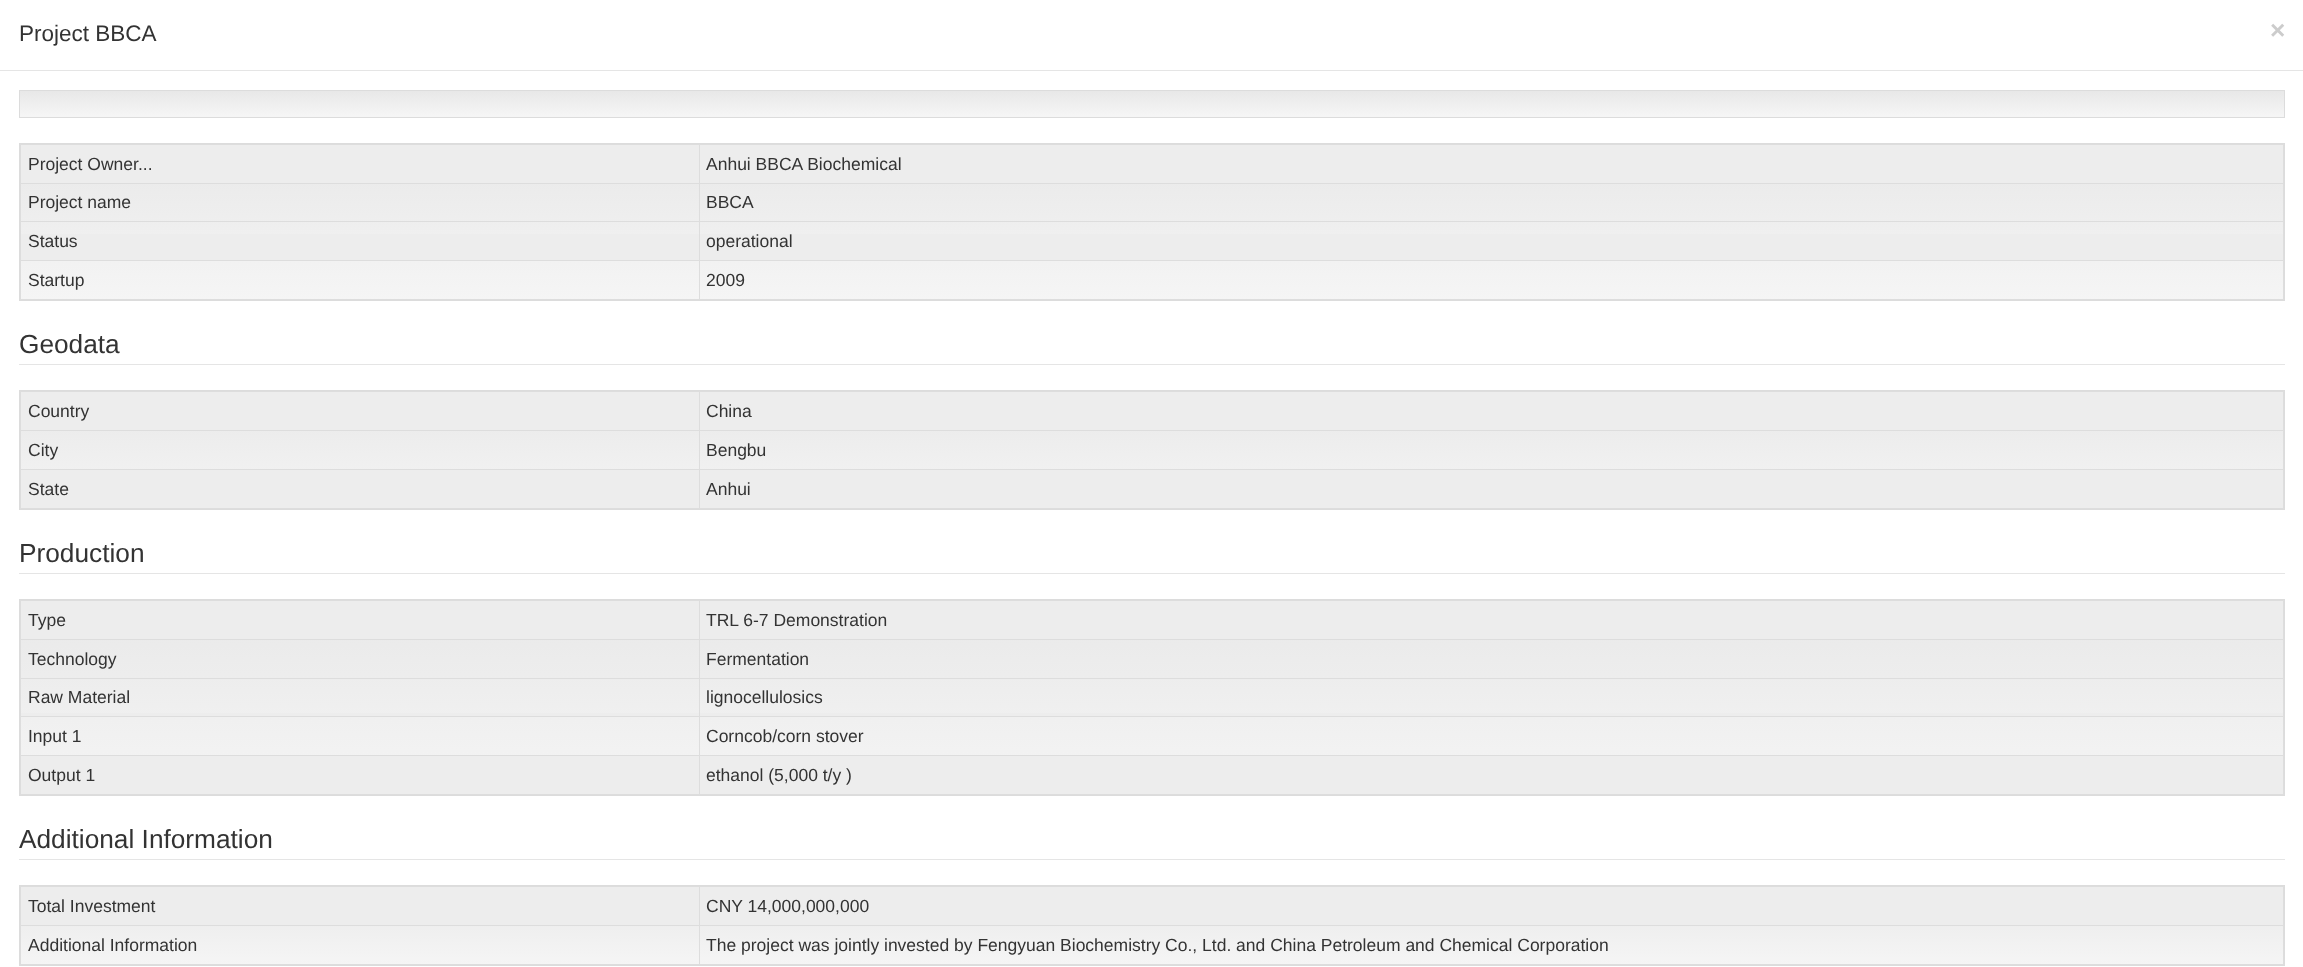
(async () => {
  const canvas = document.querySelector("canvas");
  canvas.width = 2303;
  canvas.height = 967;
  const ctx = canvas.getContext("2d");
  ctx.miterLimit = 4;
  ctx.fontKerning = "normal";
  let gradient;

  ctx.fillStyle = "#ffffff";
  ctx.fillRect(0, 0, 2303, 967);
  ctx.fillStyle = "#e5e5e5";
  ctx.fillRect(0, 70, 2303, 1);
  ctx.fillStyle = "#f5f5f5";
  ctx.fillRect(20, 116, 2264, 1);
  gradient = ctx.createLinearGradient(1152, 91, 1152, 116);
  gradient.addColorStop(0, "#e8e8e8");
  gradient.addColorStop(1, "#f5f5f5");
  ctx.fillStyle = gradient;
  ctx.fillRect(20, 91, 2264, 25);
  ctx.strokeStyle = "#dcdcdc";
  ctx.strokeRect(19.5, 90.5, 2265, 27);
  gradient = ctx.createLinearGradient(1152, 144, 1152, 300);
  gradient.addColorStop(0, "#e8e8e8");
  gradient.addColorStop(1, "#f5f5f5");
  ctx.fillStyle = gradient;
  ctx.fillRect(21, 184, 2262, 115);
  ctx.strokeRect(19.5, 143.5, 2265, 157);
  for (const [x, y, w, h, color] of [
    [20, 144, 2264, 1, "#dddddd"],
    [2283, 144, 1, 156, "#dddddd"],
    [20, 299, 2264, 1, "#dddddd"],
    [20, 144, 1, 156, "#dddddd"],
    [21, 145, 2262, 38, "#ededed"],
    [699, 183, 1585, 1, "#dddddd"],
    [699, 221, 1585, 1, "#dddddd"],
    [21, 234, 2262, 26, "#ededed"],
    [699, 260, 1585, 1, "#dddddd"],
    [699, 260, 1, 40, "#dddddd"],
    [20, 260, 680, 1, "#dddddd"],
    [699, 221, 1, 40, "#dddddd"],
    [20, 221, 680, 1, "#dddddd"],
    [699, 183, 1, 40, "#dddddd"],
    [20, 183, 680, 1, "#dddddd"],
    [699, 144, 1, 40, "#dddddd"],
    [19, 364, 2266, 1, "#e5e5e5"],
  ]) {
    ctx.fillStyle = color;
    ctx.fillRect(x, y, w, h);
  }
  gradient = ctx.createLinearGradient(1152, 391, 1152, 509);
  gradient.addColorStop(0, "#e8e8e8");
  gradient.addColorStop(1, "#f5f5f5");
  ctx.fillStyle = gradient;
  ctx.fillRect(21, 431, 2262, 38);
  ctx.strokeRect(19.5, 390.5, 2265, 119);
  for (const [x, y, w, h, color] of [
    [20, 391, 2264, 1, "#dddddd"],
    [2283, 391, 1, 118, "#dddddd"],
    [20, 508, 2264, 1, "#dddddd"],
    [20, 391, 1, 118, "#dddddd"],
    [21, 392, 2262, 38, "#ededed"],
    [699, 430, 1585, 1, "#dddddd"],
    [699, 469, 1585, 1, "#dddddd"],
    [21, 470, 2262, 38, "#ededed"],
    [699, 469, 1, 40, "#dddddd"],
    [20, 469, 680, 1, "#dddddd"],
    [699, 430, 1, 40, "#dddddd"],
    [20, 430, 680, 1, "#dddddd"],
    [699, 391, 1, 40, "#dddddd"],
    [19, 573, 2266, 1, "#e5e5e5"],
  ]) {
    ctx.fillStyle = color;
    ctx.fillRect(x, y, w, h);
  }
  gradient = ctx.createLinearGradient(1152, 600, 1152, 795);
  gradient.addColorStop(0, "#e8e8e8");
  gradient.addColorStop(1, "#f5f5f5");
  ctx.fillStyle = gradient;
  ctx.fillRect(21, 640, 2262, 115);
  ctx.strokeRect(19.5, 599.5, 2265, 196);
  for (const [x, y, w, h, color] of [
    [20, 600, 2264, 1, "#dddddd"],
    [2283, 600, 1, 195, "#dddddd"],
    [20, 794, 2264, 1, "#dddddd"],
    [20, 600, 1, 195, "#dddddd"],
    [21, 601, 2262, 38, "#ededed"],
    [699, 639, 1585, 1, "#dddddd"],
    [699, 678, 1585, 1, "#dddddd"],
    [21, 713, 2262, 3, "#ededed"],
    [699, 716, 1585, 1, "#dddddd"],
    [699, 755, 1585, 1, "#dddddd"],
    [21, 756, 2262, 38, "#ededed"],
    [699, 755, 1, 40, "#dddddd"],
    [20, 755, 680, 1, "#dddddd"],
    [699, 716, 1, 40, "#dddddd"],
    [20, 716, 680, 1, "#dddddd"],
    [699, 678, 1, 40, "#dddddd"],
    [20, 678, 680, 1, "#dddddd"],
    [699, 639, 1, 40, "#dddddd"],
    [20, 639, 680, 1, "#dddddd"],
    [699, 600, 1, 40, "#dddddd"],
    [19, 859, 2266, 1, "#e5e5e5"],
  ]) {
    ctx.fillStyle = color;
    ctx.fillRect(x, y, w, h);
  }
  gradient = ctx.createLinearGradient(1152, 886, 1152, 965);
  gradient.addColorStop(0, "#e8e8e8");
  gradient.addColorStop(1, "#f5f5f5");
  ctx.fillStyle = gradient;
  ctx.fillRect(21, 926, 2262, 38);
  ctx.strokeRect(19.5, 885.5, 2265, 80);
  for (const [x, y, w, h, color] of [
    [20, 886, 2264, 1, "#dddddd"],
    [2283, 886, 1, 79, "#dddddd"],
    [20, 964, 2264, 1, "#dddddd"],
    [20, 886, 1, 79, "#dddddd"],
    [21, 887, 2262, 38, "#ededed"],
    [699, 925, 1585, 1, "#dddddd"],
    [699, 925, 1, 40, "#dddddd"],
    [20, 925, 680, 1, "#dddddd"],
    [699, 886, 1, 40, "#dddddd"],
  ]) {
    ctx.fillStyle = color;
    ctx.fillRect(x, y, w, h);
  }
  ctx.font = "22.5px Liberation Sans";
  ctx.fillStyle = "#333333";
  ctx.fillText("Project BBCA", 19, 41);
  ctx.font = "bold 26.25px Liberation Sans";
  ctx.fillStyle = "#cccccc";
  ctx.fillText("×", 2270, 39);
  ctx.font = "17.5px Liberation Sans";
  ctx.fillStyle = "#333333";
  for (const [text, x, y] of [
    ["Project Owner...", 28, 170],
    ["Anhui BBCA Biochemical", 706, 170],
    ["Project name", 28, 208],
    ["BBCA", 706, 208],
    ["Status", 28, 247],
    ["operational", 706, 247],
    ["Startup", 28, 286],
    ["2009", 706, 286],
  ]) {
    ctx.fillText(text, x, y);
  }
  ctx.font = "26.25px Liberation Sans";
  ctx.fillText("Geodata", 19, 353);
  ctx.font = "17.5px Liberation Sans";
  for (const [text, x, y] of [
    ["Country", 28, 417],
    ["China", 706, 417],
    ["City", 28, 456],
    ["Bengbu", 706, 456],
    ["State", 28, 495],
    ["Anhui", 706, 495],
  ]) {
    ctx.fillText(text, x, y);
  }
  ctx.font = "26.25px Liberation Sans";
  ctx.fillText("Production", 19, 562);
  ctx.font = "17.5px Liberation Sans";
  for (const [text, x, y] of [
    ["Type", 28, 626],
    ["TRL 6-7 Demonstration", 706, 626],
    ["Technology", 28, 665],
    ["Fermentation", 706, 665],
    ["Raw Material", 28, 703],
    ["lignocellulosics", 706, 703],
    ["Input 1", 28, 742],
    ["Corncob/corn stover", 706, 742],
    ["Output 1", 28, 781],
    ["ethanol (5,000 t/y )", 706, 781],
  ]) {
    ctx.fillText(text, x, y);
  }
  ctx.font = "26.25px Liberation Sans";
  ctx.fillText("Additional Information", 19, 848);
  ctx.font = "17.5px Liberation Sans";
  for (const [text, x, y] of [
    ["Total Investment", 28, 912],
    ["CNY 14,000,000,000", 706, 912],
    ["Additional Information", 28, 951],
    ["The project was jointly invested by Fengyuan Biochemistry Co., Ltd. and China Petroleum and Chemical Corporation", 706, 951],
  ]) {
    ctx.fillText(text, x, y);
  }
})();
